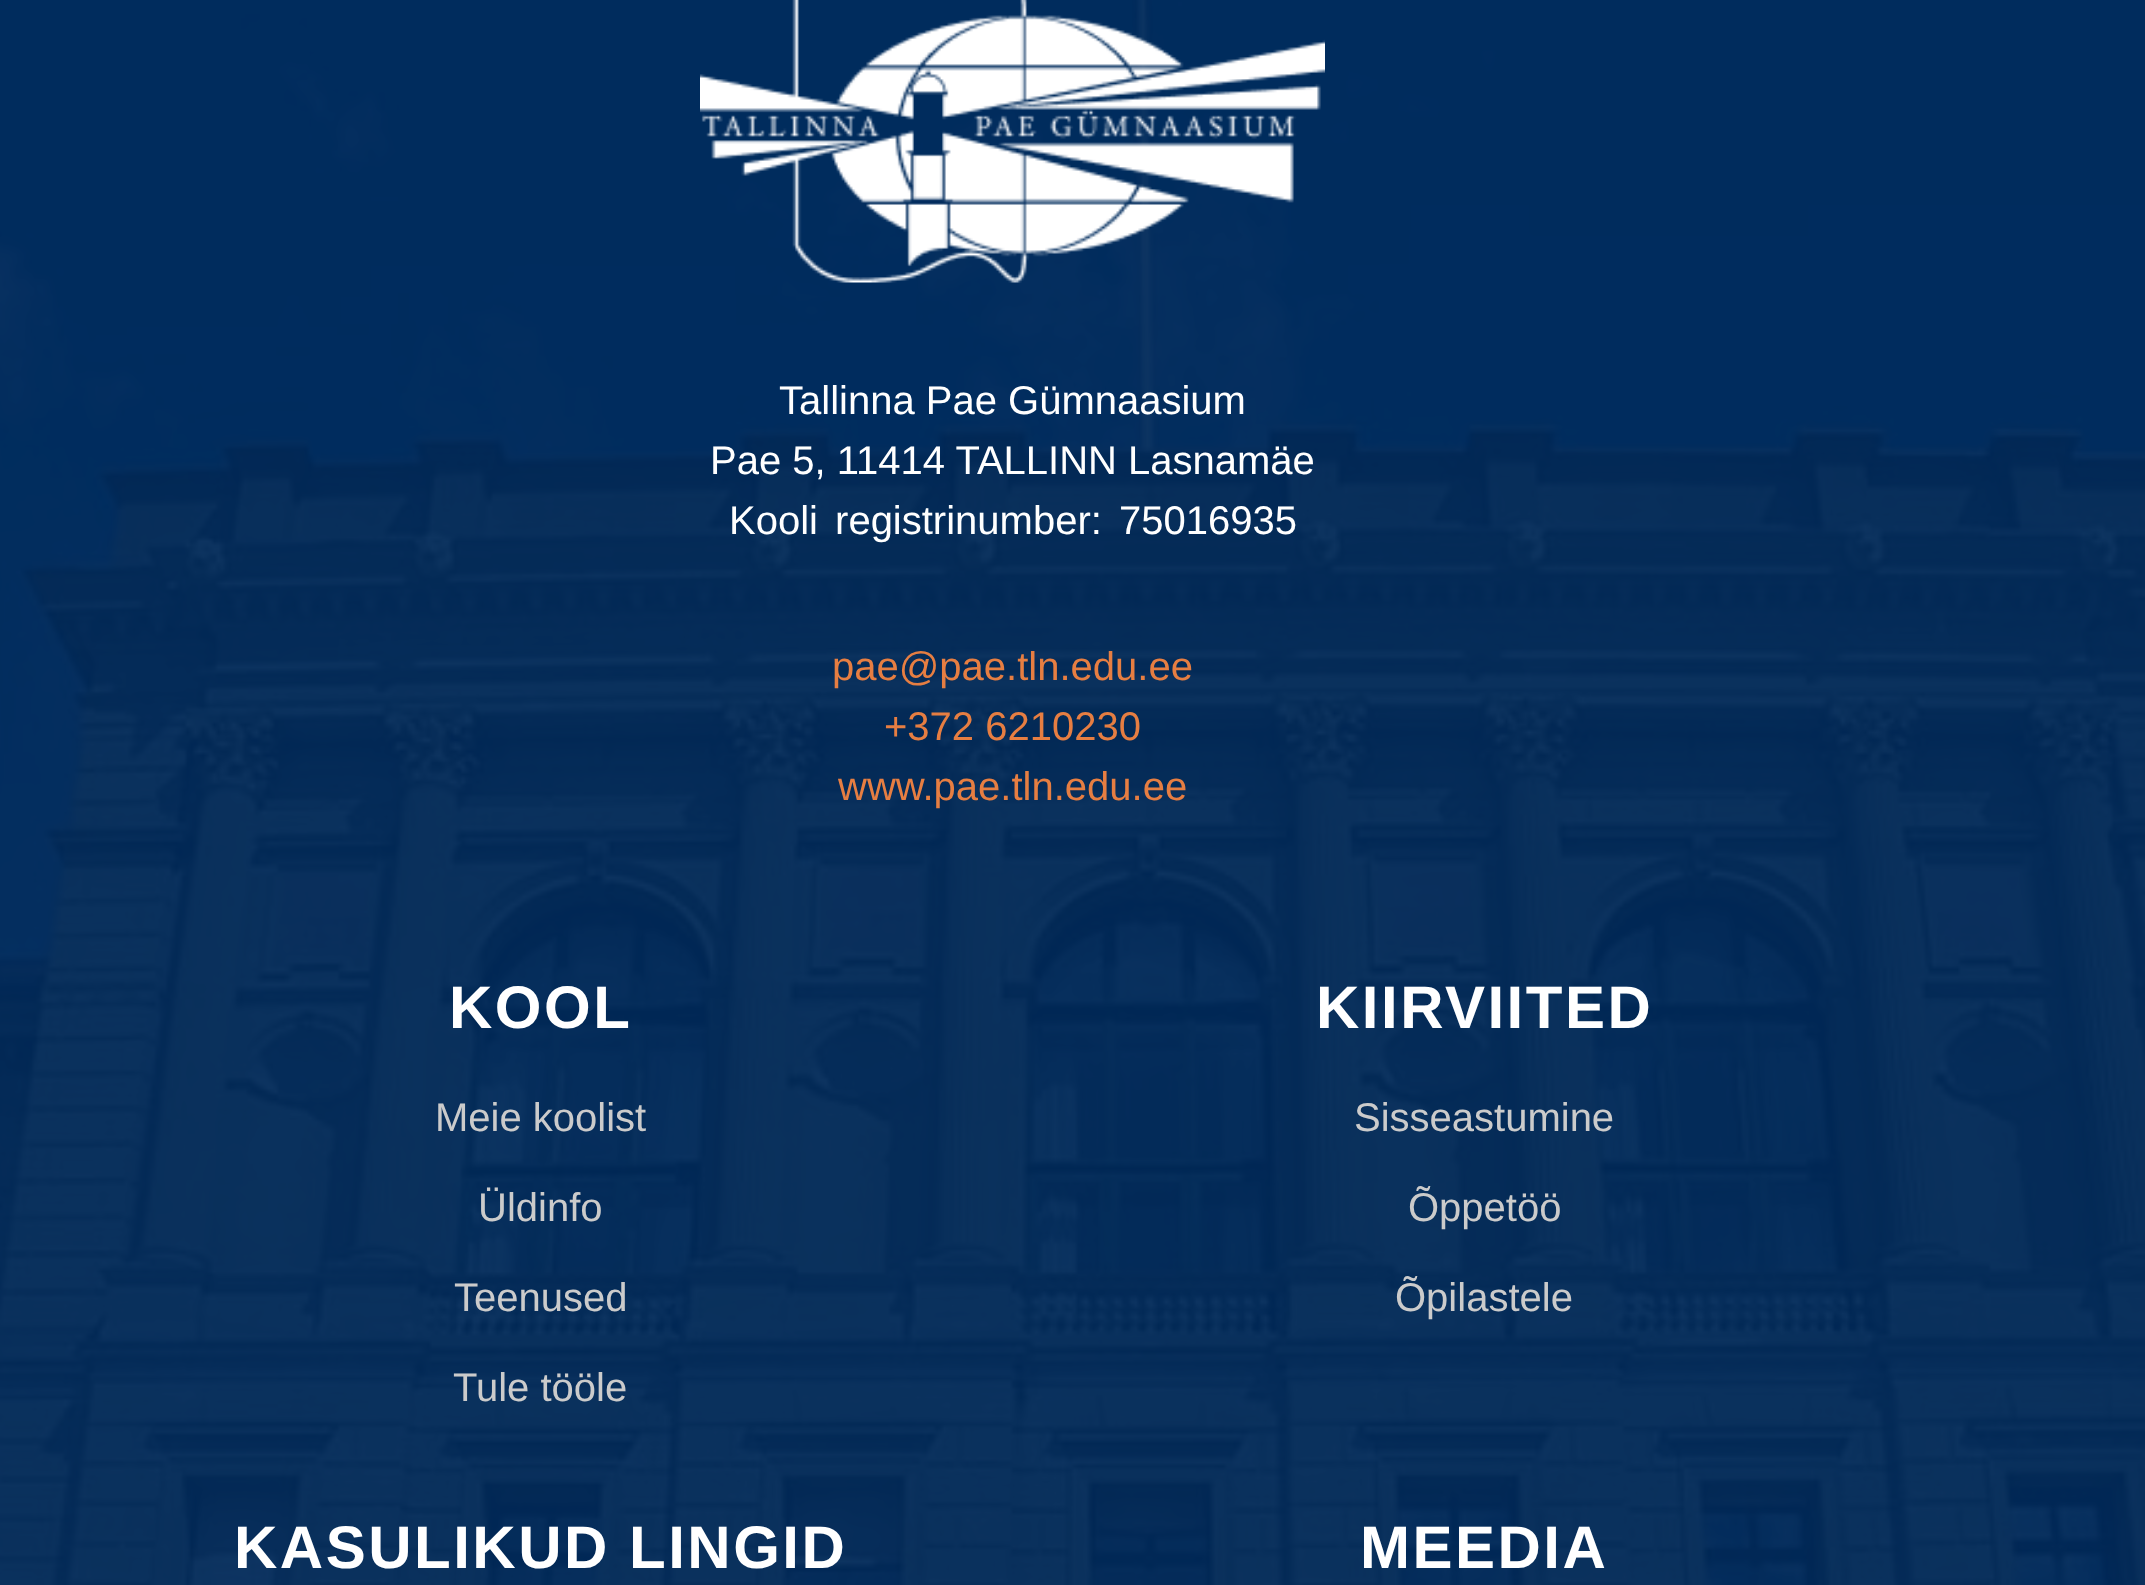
(async () => {
  const canvas = document.querySelector("canvas");
  canvas.width = 2145;
  canvas.height = 1585;
  const ctx = canvas.getContext("2d");
  ctx.miterLimit = 4;
  ctx.fontKerning = "normal";
  async function loadImage(src) {
    const img = new Image();
    img.src = src;
    await img.decode();
    return img;
  }

  ctx.fillStyle = "#ffffff";
  ctx.fillRect(0, 0, 2145, 1585);
  ctx.drawImage(await loadImage("img/1.png"), 0, 0, 2145, 1585);
  ctx.drawImage(await loadImage("img/2.png"), 700, 0, 625, 283);
  ctx.font = "40px Liberation Sans";
  ctx.fillText("Tallinna Pae Gümnaasium", 779, 414);
  ctx.fillText("Pae 5, 11414 TALLINN Lasnamäe", 710, 474);
  ctx.wordSpacing = "6px";
  ctx.fillText("Kooli registrinumber: 75016935", 729, 534);
  ctx.wordSpacing = "0px";
  ctx.fillStyle = "#e67e42";
  for (const [text, x, y] of [
    ["pae@pae.tln.edu.ee", 832, 680],
    ["+372 6210230", 884, 740],
    ["www.pae.tln.edu.ee", 838, 800],
  ]) {
    ctx.fillText(text, x, y);
  }
  ctx.letterSpacing = "2.5px";
  ctx.font = "bold 60px Liberation Sans";
  ctx.fillStyle = "#ffffff";
  ctx.fillText("KOOL", 449, 1028);
  ctx.letterSpacing = "0px";
  ctx.font = "40px Liberation Sans";
  ctx.fillStyle = "#cbcbcb";
  for (const [text, x, y] of [
    ["Meie koolist", 435, 1131],
    ["Üldinfo", 478, 1221],
    ["Teenused", 454, 1311],
    ["Tule tööle", 453, 1401],
  ]) {
    ctx.fillText(text, x, y);
  }
  ctx.letterSpacing = "2.5px";
  ctx.font = "bold 60px Liberation Sans";
  ctx.fillStyle = "#ffffff";
  ctx.fillText("KIIRVIITED", 1316, 1028);
  ctx.letterSpacing = "0px";
  ctx.font = "40px Liberation Sans";
  ctx.fillStyle = "#cbcbcb";
  for (const [text, x, y] of [
    ["Sisseastumine", 1354, 1131],
    ["Õppetöö", 1408, 1221],
    ["Õpilastele", 1395, 1311],
  ]) {
    ctx.fillText(text, x, y);
  }
  ctx.letterSpacing = "2.5px";
  ctx.font = "bold 60px Liberation Sans";
  ctx.fillStyle = "#ffffff";
  ctx.fillText("KASULIKUD LINGID", 234, 1568);
  ctx.fillText("MEEDIA", 1360, 1568);
})();
